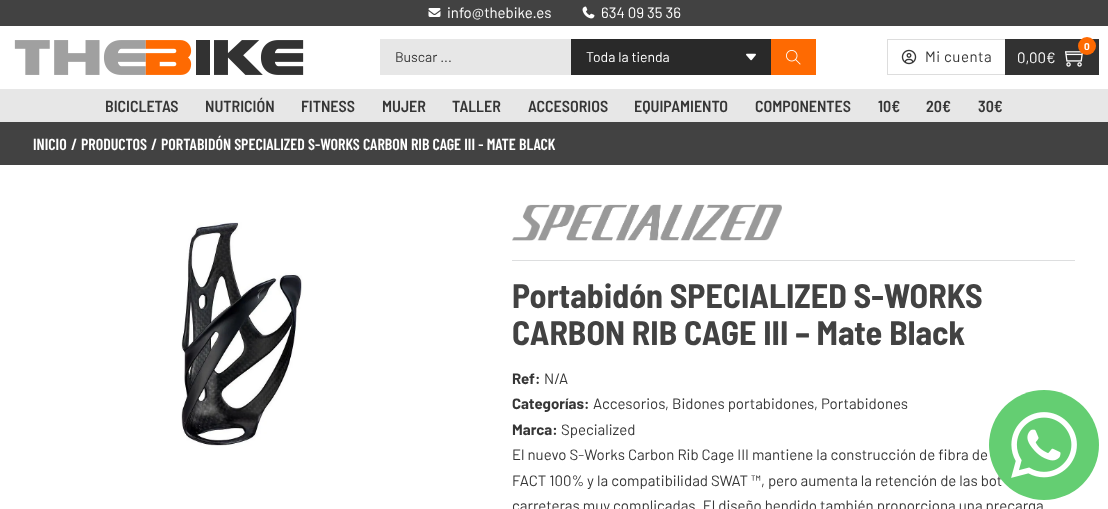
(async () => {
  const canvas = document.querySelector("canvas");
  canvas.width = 1108;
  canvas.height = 509;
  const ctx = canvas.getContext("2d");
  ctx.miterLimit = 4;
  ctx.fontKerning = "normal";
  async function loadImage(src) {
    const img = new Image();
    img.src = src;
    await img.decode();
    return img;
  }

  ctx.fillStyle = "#ffffff";
  ctx.fillRect(0, 0, 1108, 509);
  ctx.fillStyle = "#424242";
  ctx.fillRect(0, 0, 1108, 26);
  ctx.drawImage(await loadImage("img/1.png"), 428, 8, 13, 9);
  ctx.drawImage(await loadImage("img/2.png"), 582, 6, 13, 13);
  ctx.drawImage(await loadImage("img/3.png"), 14, 40, 290, 35);
  ctx.fillStyle = "#e7e7e7";
  ctx.fillRect(380, 39, 191, 36);
  ctx.fillStyle = "#292929";
  ctx.fillRect(571, 39, 200, 36);
  ctx.drawImage(await loadImage("img/4.png"), 746, 53, 10, 8);
  ctx.fillStyle = "#fe6a02";
  ctx.fillRect(771, 39, 45, 36);
  ctx.drawImage(await loadImage("img/5.png"), 786, 50, 15, 15);
  for (const [x, y, w, h, color] of [
    [887, 39, 118, 1, "#dddddd"],
    [887, 74, 118, 1, "#dddddd"],
    [887, 39, 1, 36, "#dddddd"],
  ]) {
    ctx.fillStyle = color;
    ctx.fillRect(x, y, w, h);
  }
  ctx.drawImage(await loadImage("img/6.png"), 901, 49, 16, 16);
  ctx.fillStyle = "#323232";
  ctx.fillRect(1005, 39, 94, 36);
  ctx.drawImage(await loadImage("img/7.png"), 1065, 51, 18, 16);
  ctx.fillStyle = "#fe6a02";
  ctx.beginPath();
  ctx.arc(1087, 46, 9, 0, Math.PI * 2);
  ctx.fill();
  ctx.fillStyle = "#e7e7e7";
  ctx.fillRect(0, 89, 1108, 33);
  ctx.fillStyle = "#424242";
  ctx.fillRect(0, 122, 1108, 43);
  ctx.drawImage(await loadImage("img/8.png"), 181, 222, 122, 224);
  ctx.drawImage(await loadImage("img/9.png"), 512, 204, 270, 37);
  ctx.fillStyle = "#dddedf";
  ctx.fillRect(512, 260, 563, 1);
  ctx.font = "15px Barlow";
  ctx.fillStyle = "#ffffff";
  ctx.fillText("info@thebike.es", 447, 18);
  ctx.fillText("634 09 35 36", 601, 18);
  ctx.font = "14px Barlow";
  ctx.fillStyle = "#363636";
  ctx.fillText("Buscar ...", 395, 62);
  ctx.fillStyle = "#ffffff";
  ctx.fillText("Toda la tienda", 586, 62);
  ctx.letterSpacing = "0.5px";
  ctx.font = "15px Barlow";
  ctx.fillStyle = "#363636";
  ctx.fillText("Mi cuenta", 925, 62);
  ctx.letterSpacing = "0px";
  ctx.font = "bold 10px Barlow";
  ctx.fillStyle = "#ffffff";
  ctx.fillText("0", 1084, 50);
  ctx.font = "15px Barlow";
  ctx.fillText("0,00€", 1017, 63);
  ctx.font = "600 16px Barlow Semi Condensed";
  ctx.fillStyle = "#363636";
  for (const [text, x, y] of [
    ["BICICLETAS", 105, 112],
    ["NUTRICIÓN", 205, 112],
    ["FITNESS", 301, 112],
    ["MUJER", 382, 112],
    ["TALLER", 452, 112],
    ["ACCESORIOS", 528, 112],
    ["EQUIPAMIENTO", 634, 112],
    ["COMPONENTES", 755, 112],
    ["10€", 878, 112],
    ["20€", 926, 112],
    ["30€", 978, 112],
  ]) {
    ctx.fillText(text, x, y);
  }
  ctx.font = "600 16px Barlow Condensed";
  ctx.fillStyle = "#ffffff";
  for (const [text, x, y] of [
    ["INICIO", 33, 150],
    ["/", 71, 150],
    ["PRODUCTOS", 81, 150],
    ["/", 151, 150],
    ["PORTABIDÓN SPECIALIZED S-WORKS CARBON RIB CAGE III - MATE BLACK", 161, 150],
  ]) {
    ctx.fillText(text, x, y);
  }
  ctx.font = "bold 34px Barlow Semi Condensed";
  ctx.fillStyle = "#424242";
  ctx.fillText("Portabidón SPECIALIZED S-WORKS", 512, 308);
  ctx.fillText("CARBON RIB CAGE III – Mate Black", 512, 345);
  ctx.font = "bold 15px Barlow";
  ctx.fillStyle = "#363636";
  ctx.fillText("Ref:", 512, 384);
  ctx.font = "15px Barlow";
  ctx.fillText("N/A", 544, 384);
  ctx.font = "bold 15px Barlow";
  ctx.fillText("Categorías:", 512, 409);
  ctx.font = "15px Barlow";
  for (const [text, x, y] of [
    ["Accesorios", 593, 409],
    [",", 665, 409],
    ["Bidones portabidones", 672, 409],
    [",", 814, 409],
    ["Portabidones", 821, 409],
  ]) {
    ctx.fillText(text, x, y);
  }
  ctx.font = "bold 15px Barlow";
  ctx.fillText("Marca:", 512, 435);
  ctx.font = "15px Barlow";
  for (const [text, x, y] of [
    ["Specialized", 561, 435],
    ["El nuevo S-Works Carbon Rib Cage III mantiene la construcción de fibra de", 512, 460],
    ["FACT 100% y la compatibilidad SWAT ™, pero aumenta la retención de las bot", 512, 486],
    ["carreteras muy complicadas. El diseño hendido también proporciona una precarga", 512, 511],
  ]) {
    ctx.fillText(text, x, y);
  }
  ctx.fillStyle = "#64ce72";
  ctx.beginPath();
  ctx.arc(1044, 445, 55, 0, Math.PI * 2);
  ctx.fill();
  ctx.drawImage(await loadImage("img/10.png"), 1011, 412, 66, 66);
})();
